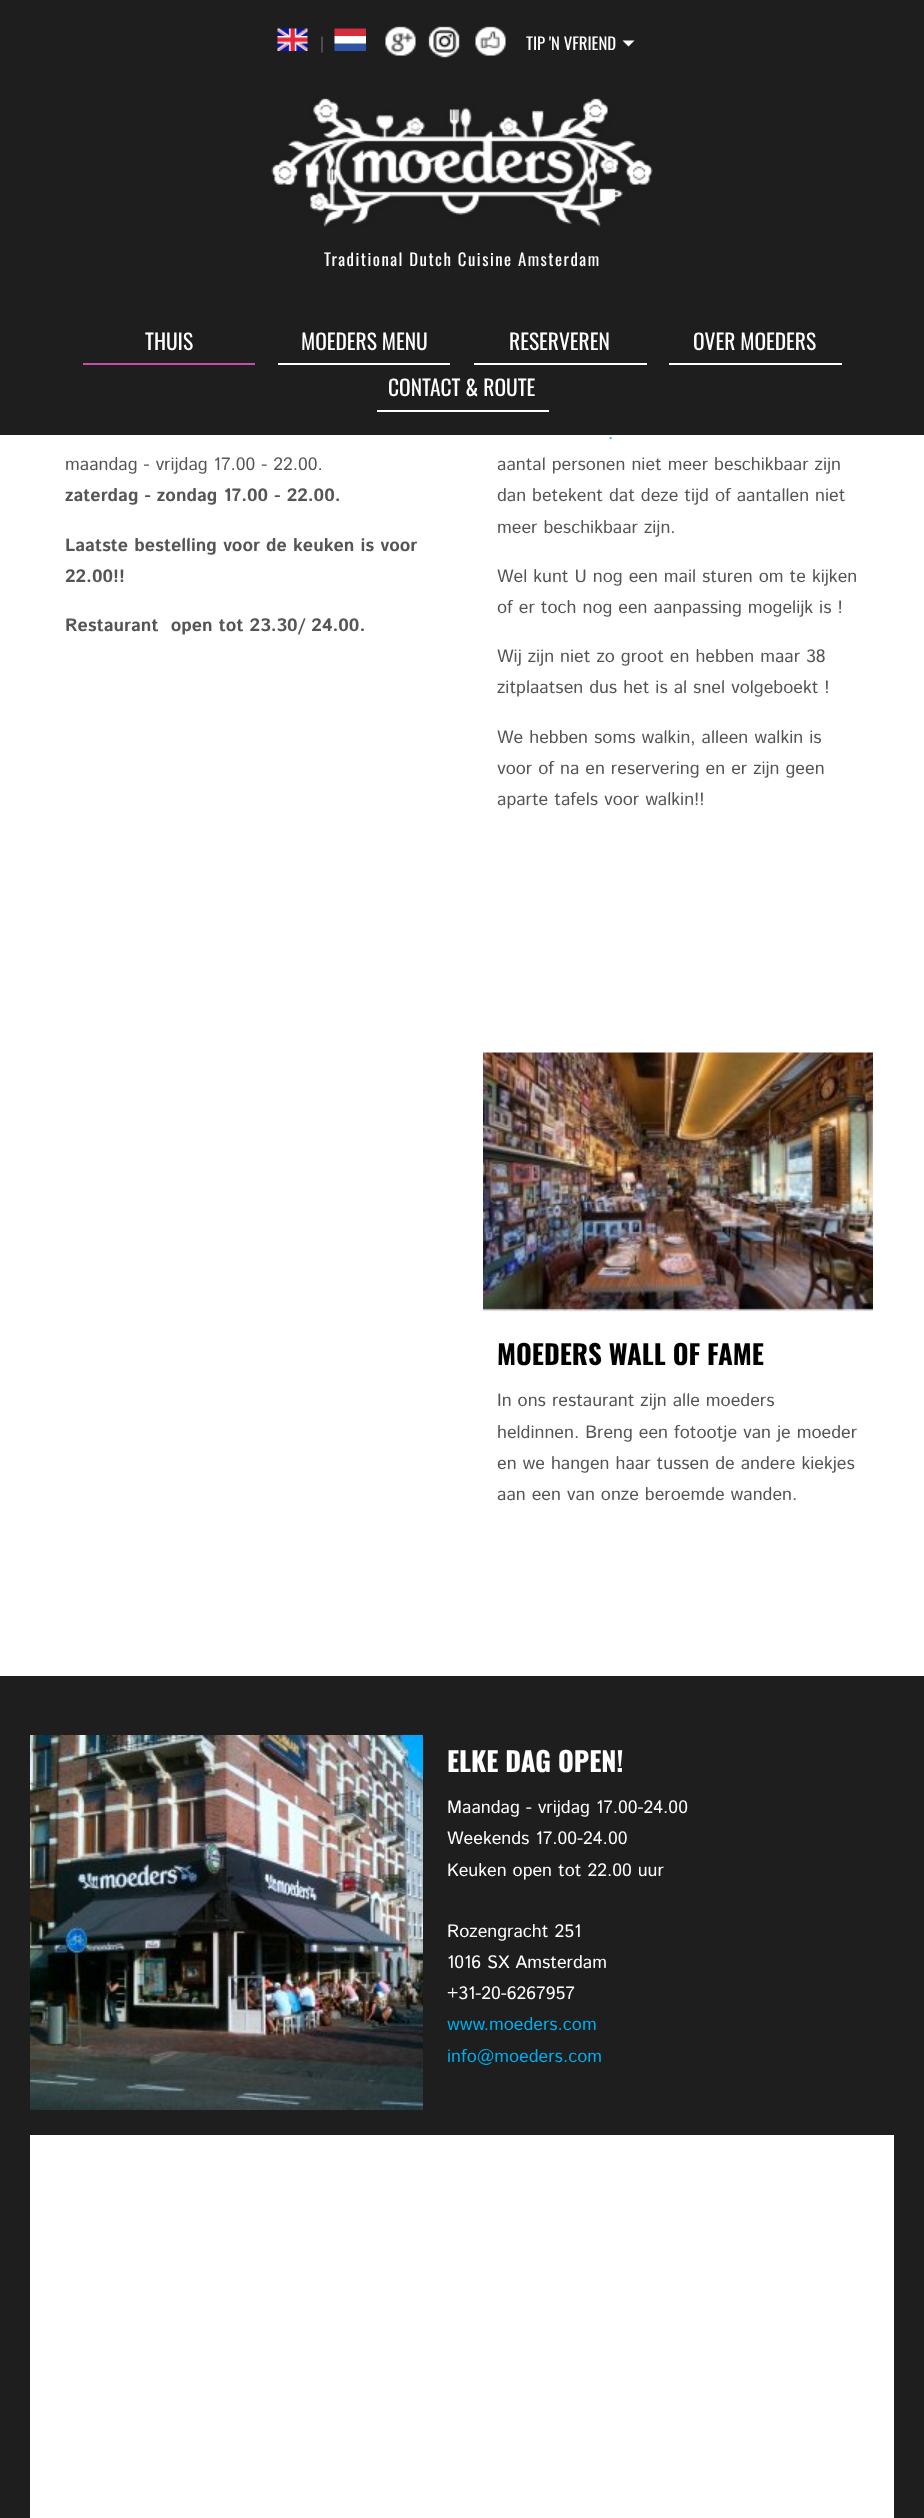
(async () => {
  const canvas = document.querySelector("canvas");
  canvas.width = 924;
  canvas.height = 2518;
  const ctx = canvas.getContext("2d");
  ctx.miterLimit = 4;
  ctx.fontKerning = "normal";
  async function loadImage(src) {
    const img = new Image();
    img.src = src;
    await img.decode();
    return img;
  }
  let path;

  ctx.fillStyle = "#ffffff";
  ctx.fillRect(0, 0, 924, 2518);
  ctx.fillStyle = "#1e1e1e";
  ctx.fillRect(0, 0, 924, 435);
  ctx.drawImage(await loadImage("img/1.png"), 277, 28, 31, 23);
  ctx.drawImage(await loadImage("img/2.png"), 334, 28, 32, 23);
  ctx.drawImage(await loadImage("img/3.png"), 385, 26, 31, 30);
  ctx.drawImage(await loadImage("img/4.png"), 428, 26, 32, 32);
  ctx.drawImage(await loadImage("img/5.png"), 475, 26, 31, 30);
  ctx.fillStyle = "#ffffff";
  path = new Path2D("M622.5 40.5H634.5L628.5 46.5Z");
  ctx.fill(path);
  ctx.drawImage(await loadImage("img/6.png"), 271, 98, 382, 129);
  for (const [x, y, w, h, color] of [
    [83, 363, 172, 2, "#c84eae"],
    [278, 363, 172, 2, "#ffffff"],
    [474, 363, 173, 2, "#ffffff"],
    [669, 363, 173, 2, "#ffffff"],
    [377, 410, 172, 2, "#ffffff"],
  ]) {
    ctx.fillStyle = color;
    ctx.fillRect(x, y, w, h);
  }
  ctx.drawImage(await loadImage("img/7.png"), 483, 1052, 390, 260);
  ctx.fillStyle = "#1e1e1e";
  ctx.fillRect(0, 1676, 924, 842);
  ctx.drawImage(await loadImage("img/8.png"), 30, 1735, 393, 375);
  ctx.fillStyle = "#ffffff";
  ctx.fillRect(30, 2135, 864, 383);
  ctx.font = "16.75px Oswald";
  ctx.fillStyle = "#555555";
  ctx.fillText("|", 320, 50);
  ctx.fillStyle = "#ffffff";
  ctx.fillText("TIP 'N VFRIEND", 526, 50);
  ctx.letterSpacing = "1.5px";
  ctx.fillText("Traditional Dutch Cuisine Amsterdam", 324, 266);
  ctx.letterSpacing = "0px";
  ctx.font = "21.5px Oswald";
  for (const [text, x, y] of [
    ["THUIS", 145, 350],
    ["MOEDERS MENU", 301, 350],
    ["RESERVEREN", 509, 350],
    ["OVER MOEDERS", 693, 350],
    ["CONTACT & ROUTE", 388, 396],
  ]) {
    ctx.fillText(text, x, y);
  }
  ctx.font = "18px Istok Web";
  ctx.fillStyle = "#555555";
  ctx.fillText("maandag - vrijdag 17.00 - 22.00.", 65, 470);
  ctx.font = "bold 18px Istok Web";
  for (const [text, x, y] of [
    ["zaterdag - zondag 17.00 - 22.00.", 65, 501],
    ["Laatste bestelling voor de keuken is voor", 65, 551],
    ["22.00!!", 65, 582],
    ["Restaurant  open tot 23.30/ 24.00.", 65, 631],
  ]) {
    ctx.fillText(text, x, y);
  }
  ctx.font = "18px Istok Web";
  ctx.fillStyle = "#00adec";
  ctx.fillText(".", 608, 439);
  ctx.fillStyle = "#555555";
  for (const [text, x, y] of [
    ["aantal personen niet meer beschikbaar zijn", 497, 470],
    ["dan betekent dat deze tijd of aantallen niet", 497, 501],
    ["meer beschikbaar zijn.", 497, 533],
    ["Wel kunt U nog een mail sturen om te kijken", 497, 582],
    ["of er toch nog een aanpassing mogelijk is !", 497, 613],
    ["Wij zijn niet zo groot en hebben maar 38", 497, 662],
    ["zitplaatsen dus het is al snel volgeboekt !", 497, 693],
    ["We hebben soms walkin, alleen walkin is", 497, 743],
    ["voor of na en reservering en er zijn geen", 497, 774],
    ["aparte tafels voor walkin!!", 497, 805],
  ]) {
    ctx.fillText(text, x, y);
  }
  ctx.font = "bold 27px Oswald";
  ctx.fillStyle = "#000000";
  ctx.fillText("MOEDERS WALL OF FAME", 497, 1365);
  ctx.font = "18px Istok Web";
  ctx.fillStyle = "#555555";
  for (const [text, x, y] of [
    ["In ons restaurant zijn alle moeders", 497, 1406],
    ["heldinnen. Breng een fotootje van je moeder", 497, 1438],
    ["en we hangen haar tussen de andere kiekjes", 497, 1469],
    ["aan een van onze beroemde wanden.", 497, 1500],
  ]) {
    ctx.fillText(text, x, y);
  }
  ctx.font = "bold 27px Oswald";
  ctx.fillStyle = "#ffffff";
  ctx.fillText("ELKE DAG OPEN!", 447, 1772);
  ctx.font = "18px Istok Web";
  for (const [text, x, y] of [
    ["Maandag - vrijdag 17.00-24.00", 447, 1813],
    ["Weekends 17.00-24.00", 447, 1844],
    ["Keuken open tot 22.00 uur", 447, 1876],
    ["Rozengracht 251", 447, 1937],
    ["1016 SX Amsterdam", 447, 1968],
    ["+31-20-6267957", 447, 1999],
  ]) {
    ctx.fillText(text, x, y);
  }
  ctx.fillStyle = "#00adec";
  ctx.fillText("www.moeders.com", 447, 2030);
  ctx.fillText("info@moeders.com", 447, 2062);
})();
